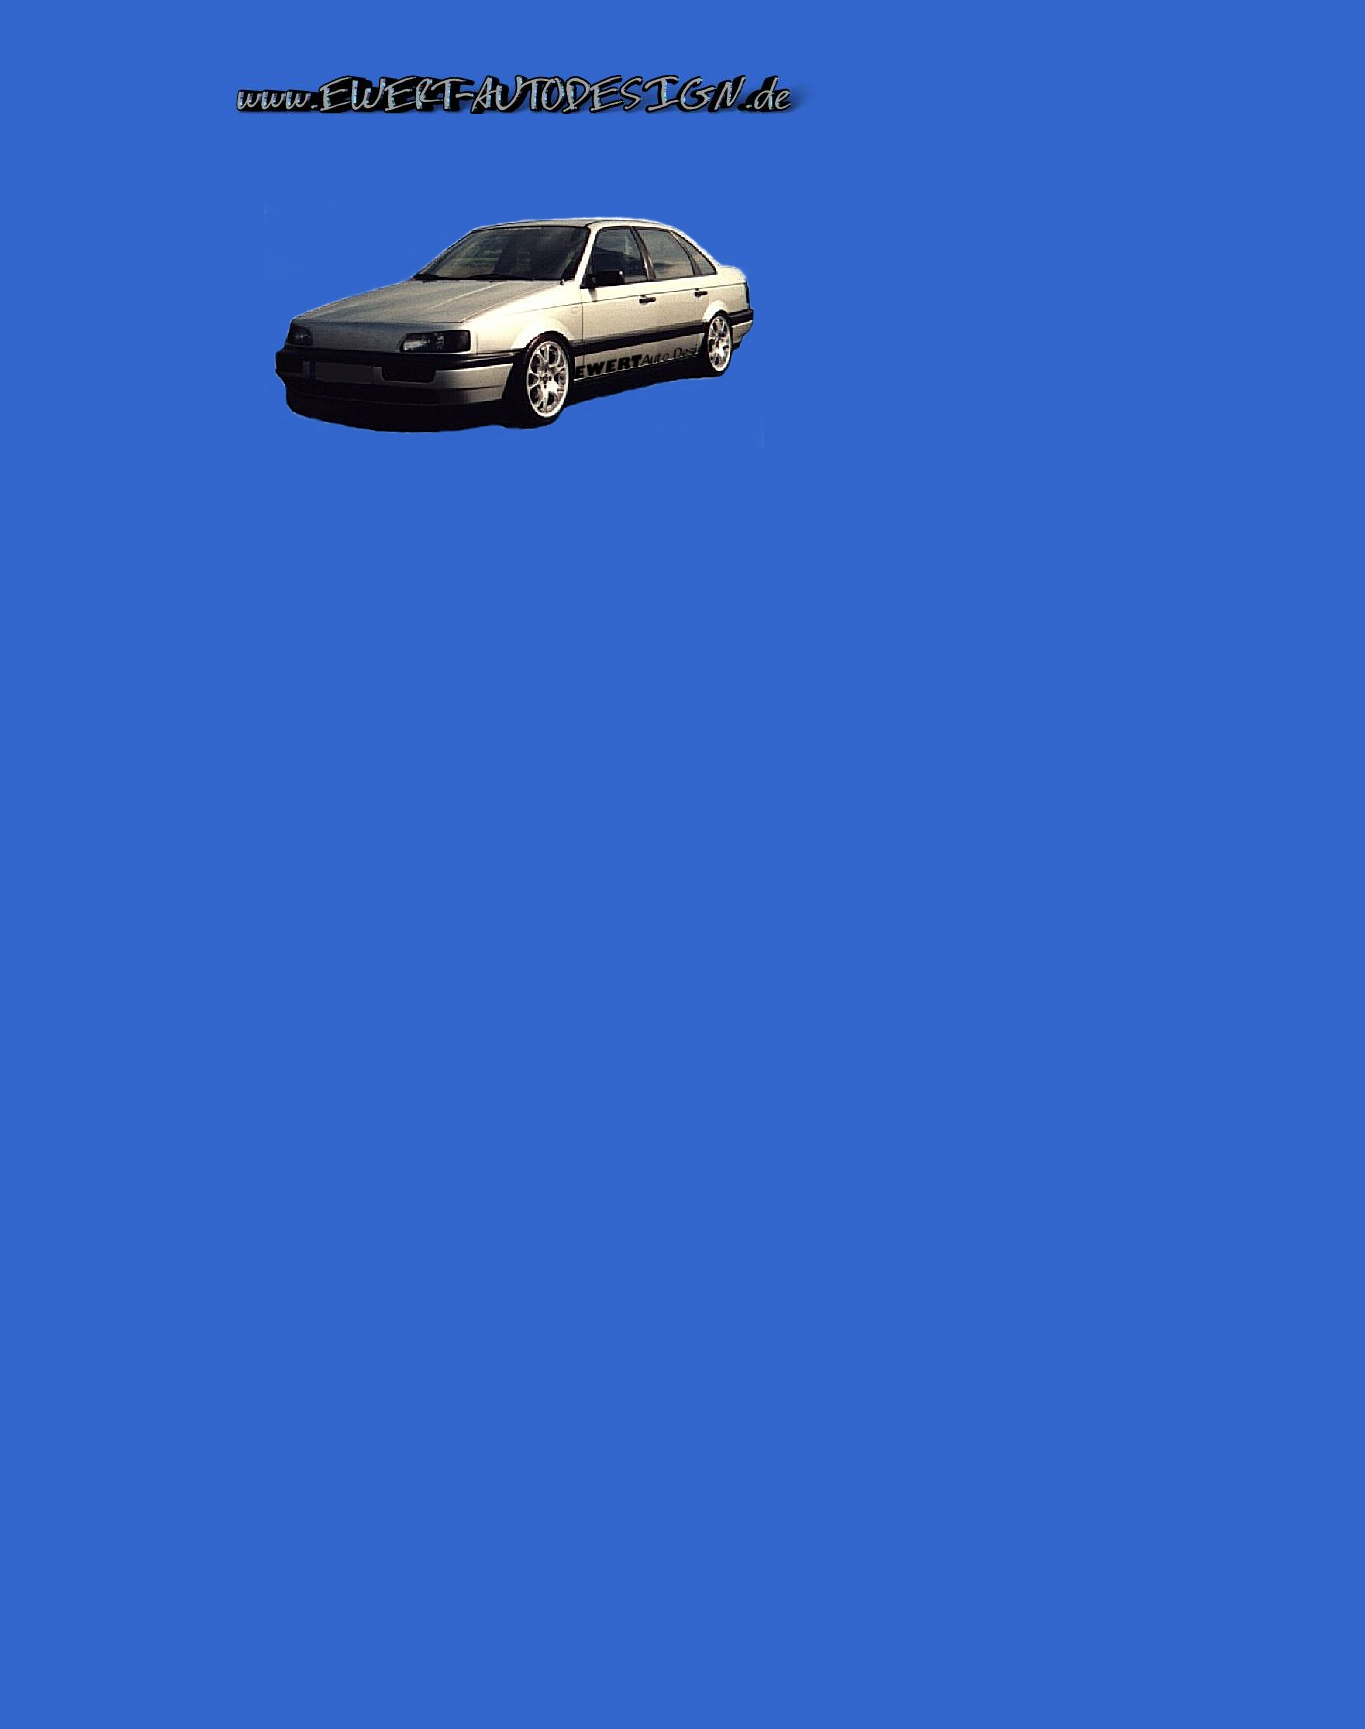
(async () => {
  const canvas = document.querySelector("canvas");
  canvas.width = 1365;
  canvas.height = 1729;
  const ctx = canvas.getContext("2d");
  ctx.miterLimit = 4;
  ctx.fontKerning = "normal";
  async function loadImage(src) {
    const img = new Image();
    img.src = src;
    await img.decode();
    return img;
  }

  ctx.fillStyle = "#3266cc";
  ctx.fillRect(0, 0, 1365, 1729);
  ctx.drawImage(await loadImage("img/1.png"), 225, 75, 592, 39);
  ctx.drawImage(await loadImage("img/2.png"), 264, 202, 500, 247);
})();
